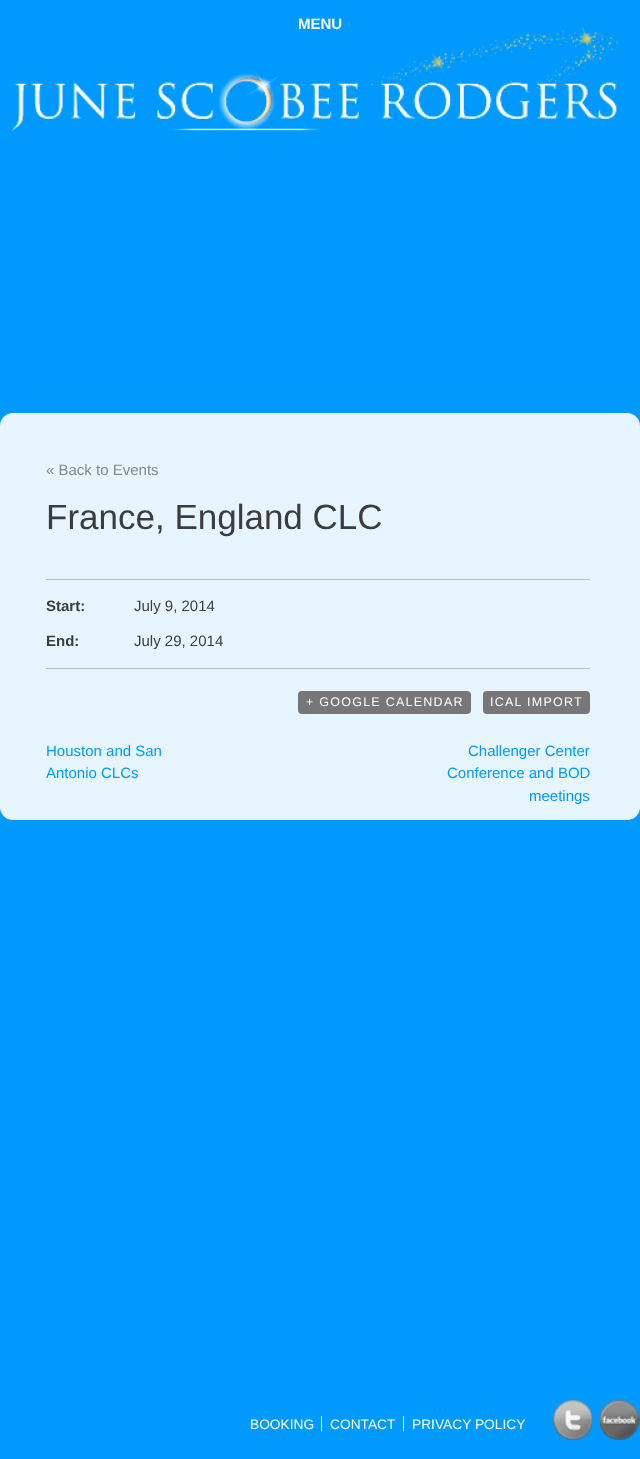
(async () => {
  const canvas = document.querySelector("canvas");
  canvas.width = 640;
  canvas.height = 1459;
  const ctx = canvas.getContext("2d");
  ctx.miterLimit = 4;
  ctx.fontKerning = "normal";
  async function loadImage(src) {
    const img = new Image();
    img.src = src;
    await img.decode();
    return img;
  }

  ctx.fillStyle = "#009afe";
  ctx.fillRect(0, 0, 640, 1459);
  ctx.drawImage(await loadImage("img/1.png"), 12, 24, 607, 107);
  ctx.fillStyle = "#e6f5ff";
  ctx.beginPath();
  ctx.roundRect(0, 413, 640, 407, 13);
  ctx.fill();
  ctx.fillStyle = "#bbbbbb";
  ctx.fillRect(46, 579, 544, 1);
  ctx.fillRect(46, 668, 544, 1);
  ctx.fillStyle = "#777777";
  ctx.beginPath();
  ctx.roundRect(298, 691, 173, 23, 4);
  ctx.fill();
  ctx.beginPath();
  ctx.roundRect(483, 691, 107, 23, 4);
  ctx.fill();
  ctx.fillStyle = "#ffffff";
  ctx.fillRect(321, 1416, 1, 15);
  ctx.fillRect(403, 1416, 1, 15);
  ctx.drawImage(await loadImage("img/2.png"), 552, 1400, 41, 40);
  ctx.drawImage(await loadImage("img/3.png"), 600, 1400, 40, 40);
  ctx.font = "bold 15px Liberation Sans";
  ctx.fillText("MENU", 298, 29);
  ctx.font = "15px Liberation Sans";
  ctx.fillStyle = "#888888";
  ctx.fillText("« Back to Events", 46, 475);
  ctx.font = "35px Liberation Sans";
  ctx.fillStyle = "#3c3c3c";
  ctx.fillText("France, England CLC", 46, 529);
  ctx.font = "bold 15px Liberation Sans";
  ctx.fillText("Start:", 46, 611);
  ctx.font = "15px Liberation Sans";
  ctx.fillText("July 9, 2014", 134, 611);
  ctx.font = "bold 15px Liberation Sans";
  ctx.fillText("End:", 46, 646);
  ctx.font = "15px Liberation Sans";
  ctx.fillText("July 29, 2014", 134, 646);
  ctx.letterSpacing = "1.25px";
  ctx.font = "12.5px Liberation Sans";
  ctx.fillStyle = "#ffffff";
  ctx.fillText("+ GOOGLE CALENDAR", 306, 706);
  ctx.fillText("ICAL IMPORT", 490, 706);
  ctx.letterSpacing = "0px";
  ctx.font = "15px Liberation Sans";
  ctx.fillStyle = "#009afe";
  for (const [text, x, y] of [
    ["Houston and San", 46, 756],
    ["Antonio CLCs", 46, 778],
    ["Challenger Center", 468, 756],
    ["Conference and BOD", 447, 778],
    ["meetings", 529, 801],
  ]) {
    ctx.fillText(text, x, y);
  }
  ctx.font = "13.75px Liberation Sans";
  ctx.fillStyle = "#ffffff";
  for (const [text, x, y] of [
    ["BOOKING", 250, 1429],
    ["CONTACT", 330, 1429],
    ["PRIVACY POLICY", 412, 1429],
  ]) {
    ctx.fillText(text, x, y);
  }
})();
